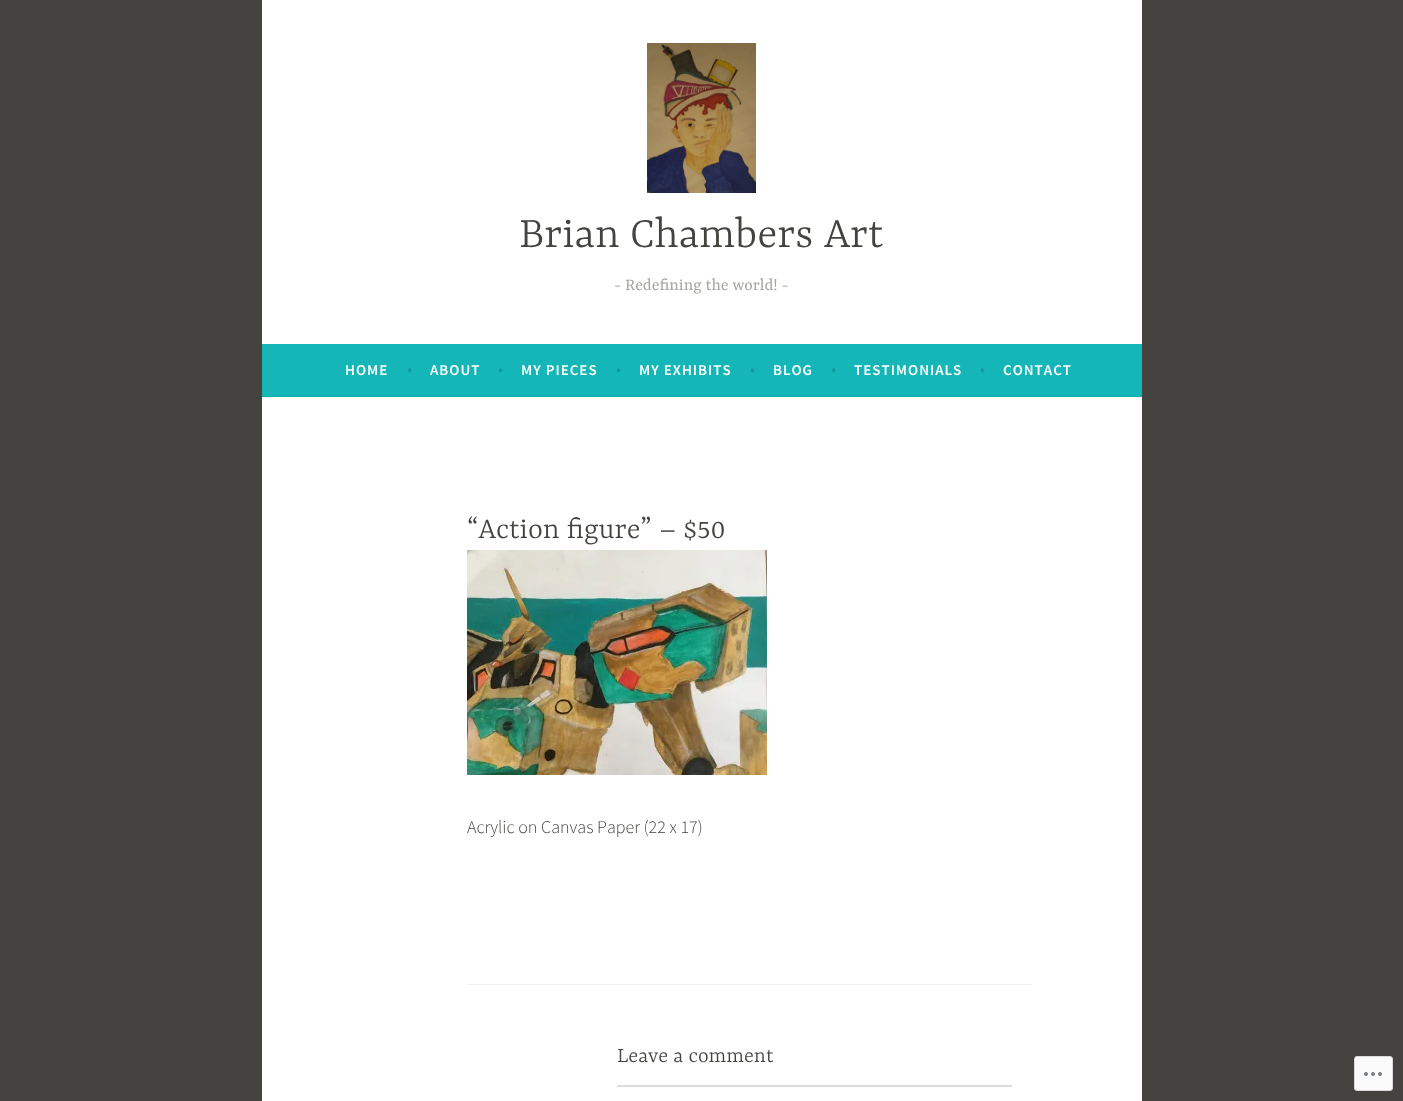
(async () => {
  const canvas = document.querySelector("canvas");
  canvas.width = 1403;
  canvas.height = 1101;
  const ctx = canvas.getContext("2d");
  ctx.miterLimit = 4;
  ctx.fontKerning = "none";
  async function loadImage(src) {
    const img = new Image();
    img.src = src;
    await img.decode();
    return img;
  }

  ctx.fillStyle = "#444340";
  ctx.fillRect(0, 0, 1403, 1101);
  ctx.fillStyle = "#ffffff";
  ctx.fillRect(262, 0, 880, 344);
  ctx.drawImage(await loadImage("img/1.png"), 647, 43, 109, 150);
  for (const [x, y, w, h, color] of [
    [262, 344, 880, 51, "#15b6b8"],
    [262, 395, 880, 2, "#14b1b2"],
    [262, 397, 880, 704, "#ffffff"],
  ]) {
    ctx.fillStyle = color;
    ctx.fillRect(x, y, w, h);
  }
  ctx.drawImage(await loadImage("img/2.png"), 467, 550, 300, 225);
  ctx.fillStyle = "#f2f2f2";
  ctx.fillRect(467, 984, 565, 1);
  ctx.fillStyle = "#dcdcde";
  ctx.fillRect(617, 1085, 395, 2);
  ctx.fillStyle = "#fbfbfb";
  ctx.beginPath();
  ctx.roundRect(1354.5, 1056.5, 38, 34, 2.5);
  ctx.fill();
  ctx.strokeStyle = "#d9d9db";
  ctx.stroke();
  ctx.drawImage(await loadImage("img/3.png"), 1364, 1072, 18, 4);
  ctx.font = "300 47px Yrsa";
  ctx.fillStyle = "#444340";
  ctx.fillText("Brian Chambers Art", 519, 247);
  ctx.font = "18px Yrsa";
  ctx.fillStyle = "#a8a6a1";
  ctx.fillText("- Redefining the world! -", 614, 290);
  ctx.letterSpacing = "1px";
  ctx.font = "600 15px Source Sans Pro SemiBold";
  ctx.fillStyle = "#ffffff";
  ctx.fillText("HOME", 345, 375);
  ctx.letterSpacing = "0px";
  ctx.font = "300 18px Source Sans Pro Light";
  ctx.fillStyle = "#129b9c";
  ctx.fillText("•", 407, 375);
  ctx.letterSpacing = "1px";
  ctx.font = "600 15px Source Sans Pro SemiBold";
  ctx.fillStyle = "#ffffff";
  ctx.fillText("ABOUT", 430, 375);
  ctx.letterSpacing = "0px";
  ctx.font = "300 18px Source Sans Pro Light";
  ctx.fillStyle = "#129b9c";
  ctx.fillText("•", 498, 375);
  ctx.letterSpacing = "1px";
  ctx.font = "600 15px Source Sans Pro SemiBold";
  ctx.fillStyle = "#ffffff";
  ctx.fillText("MY PIECES", 521, 375);
  ctx.letterSpacing = "0px";
  ctx.font = "300 18px Source Sans Pro Light";
  ctx.fillStyle = "#129b9c";
  ctx.fillText("•", 616, 375);
  ctx.letterSpacing = "1px";
  ctx.font = "600 15px Source Sans Pro SemiBold";
  ctx.fillStyle = "#ffffff";
  ctx.fillText("MY EXHIBITS", 639, 375);
  ctx.letterSpacing = "0px";
  ctx.font = "300 18px Source Sans Pro Light";
  ctx.fillStyle = "#129b9c";
  ctx.fillText("•", 750, 375);
  ctx.letterSpacing = "1px";
  ctx.font = "600 15px Source Sans Pro SemiBold";
  ctx.fillStyle = "#ffffff";
  ctx.fillText("BLOG", 773, 375);
  ctx.letterSpacing = "0px";
  ctx.font = "300 18px Source Sans Pro Light";
  ctx.fillStyle = "#129b9c";
  ctx.fillText("•", 831, 375);
  ctx.letterSpacing = "1px";
  ctx.font = "600 15px Source Sans Pro SemiBold";
  ctx.fillStyle = "#ffffff";
  ctx.fillText("TESTIMONIALS", 854, 375);
  ctx.letterSpacing = "0px";
  ctx.font = "300 18px Source Sans Pro Light";
  ctx.fillStyle = "#129b9c";
  ctx.fillText("•", 980, 375);
  ctx.letterSpacing = "1px";
  ctx.font = "600 15px Source Sans Pro SemiBold";
  ctx.fillStyle = "#ffffff";
  ctx.fillText("CONTACT", 1003, 375);
  ctx.letterSpacing = "0px";
  ctx.font = "300 32px Yrsa";
  ctx.fillStyle = "#444340";
  ctx.fillText("“Action figure” – $50", 467, 538);
  ctx.font = "300 18px Source Sans Pro Light";
  ctx.fillText("Acrylic on Canvas Paper (22 x 17)", 467, 833);
  ctx.font = "300 23px Yrsa";
  ctx.fillText("Leave a comment", 617, 1062);
})();
